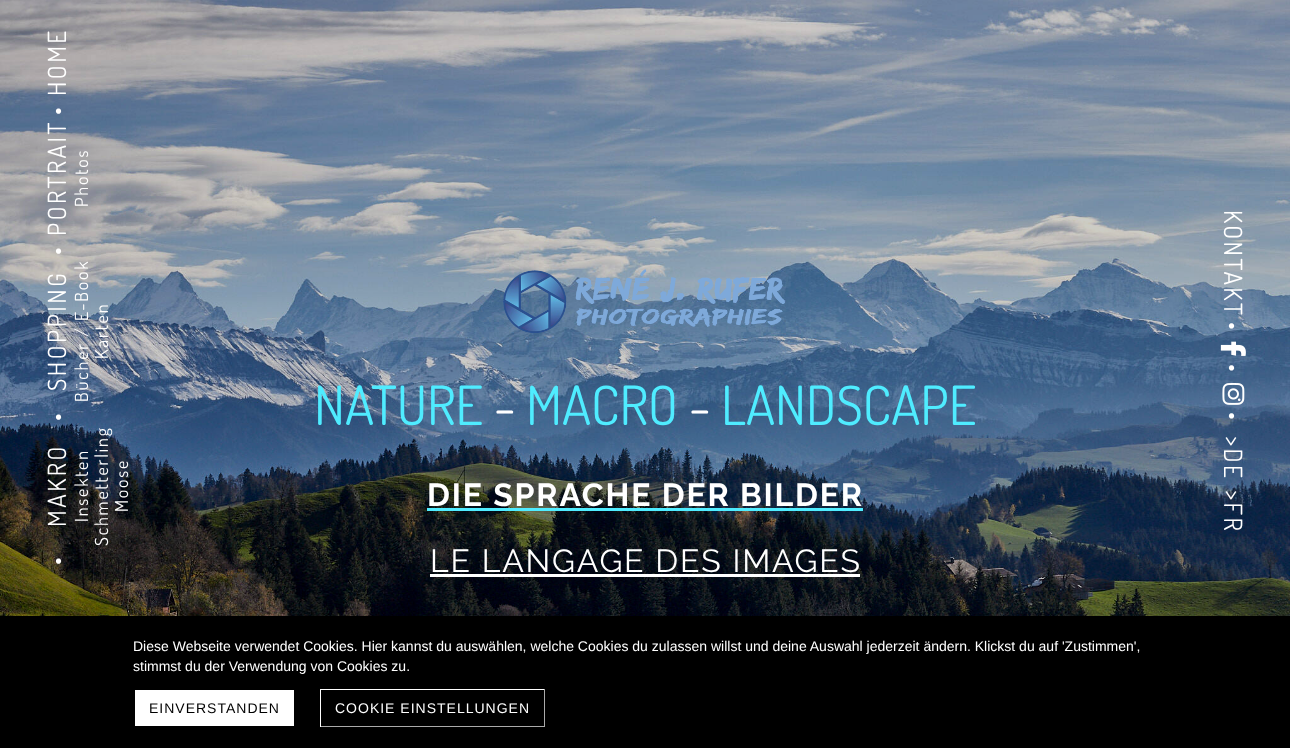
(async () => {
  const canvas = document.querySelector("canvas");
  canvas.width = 1290;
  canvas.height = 748;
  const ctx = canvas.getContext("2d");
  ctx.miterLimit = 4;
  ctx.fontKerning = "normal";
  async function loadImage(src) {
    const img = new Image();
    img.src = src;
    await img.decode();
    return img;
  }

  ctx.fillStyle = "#ffffff";
  ctx.fillRect(0, 0, 1290, 748);
  ctx.drawImage(await loadImage("img/1.png"), 0, 0, 1290, 616);
  ctx.drawImage(await loadImage("img/2.png"), 503, 269, 282, 64);
  ctx.fillStyle = "#4fecff";
  ctx.fillRect(427, 508, 436, 3);
  ctx.fillStyle = "#ffffff";
  ctx.fillRect(430, 574, 430, 3);
  ctx.drawImage(await loadImage("img/3.png"), 1220, 341, 26, 15);
  ctx.drawImage(await loadImage("img/4.png"), 1222, 383, 23, 22);
  for (const [x, y, w, h, color] of [
    [0, 616, 1290, 132, "#000000"],
    [135, 690, 159, 36, "#ffffff"],
    [320, 689, 225, 1, "#ffffff"],
    [544, 689, 1, 38, "#aaaaaa"],
    [320, 726, 225, 1, "#aaaaaa"],
    [320, 689, 1, 38, "#ffffff"],
  ]) {
    ctx.fillStyle = color;
    ctx.fillRect(x, y, w, h);
  }
  ctx.letterSpacing = "2.5px";
  ctx.font = "25px Dosis";
  ctx.save();
  ctx.translate(66, 96);
  ctx.rotate(-90 * Math.PI / 180);
  ctx.fillText("HOME", 0, 0);
  ctx.restore();
  ctx.save();
  ctx.translate(66, 115);
  ctx.rotate(-90 * Math.PI / 180);
  ctx.fillText("•", 0, 0);
  ctx.restore();
  ctx.save();
  ctx.translate(66, 236);
  ctx.rotate(-90 * Math.PI / 180);
  ctx.fillText("PORTRAIT", 0, 0);
  ctx.restore();
  ctx.letterSpacing = "1.8px";
  ctx.font = "18px Dosis";
  ctx.save();
  ctx.translate(88, 207);
  ctx.rotate(-90 * Math.PI / 180);
  ctx.fillText("Photos", 0, 0);
  ctx.restore();
  ctx.letterSpacing = "2.5px";
  ctx.font = "25px Dosis";
  ctx.save();
  ctx.translate(66, 255);
  ctx.rotate(-90 * Math.PI / 180);
  ctx.fillText("•", 0, 0);
  ctx.restore();
  ctx.save();
  ctx.translate(66, 391);
  ctx.rotate(-90 * Math.PI / 180);
  ctx.fillText("SHOPPING", 0, 0);
  ctx.restore();
  ctx.letterSpacing = "1.8px";
  ctx.font = "18px Dosis";
  ctx.save();
  ctx.translate(88, 402);
  ctx.rotate(-90 * Math.PI / 180);
  ctx.fillText("Bücher / E-Book", 0, 0);
  ctx.restore();
  ctx.save();
  ctx.translate(108, 359);
  ctx.rotate(-90 * Math.PI / 180);
  ctx.fillText("Karten", 0, 0);
  ctx.restore();
  ctx.letterSpacing = "2.5px";
  ctx.font = "25px Dosis";
  ctx.save();
  ctx.translate(66, 421);
  ctx.rotate(-90 * Math.PI / 180);
  ctx.fillText("•", 0, 0);
  ctx.restore();
  ctx.save();
  ctx.translate(66, 527);
  ctx.rotate(-90 * Math.PI / 180);
  ctx.fillText("MAKRO", 0, 0);
  ctx.restore();
  ctx.letterSpacing = "1.8px";
  ctx.font = "18px Dosis";
  ctx.save();
  ctx.translate(88, 522);
  ctx.rotate(-90 * Math.PI / 180);
  ctx.fillText("Insekten", 0, 0);
  ctx.restore();
  ctx.save();
  ctx.translate(108, 546);
  ctx.rotate(-90 * Math.PI / 180);
  ctx.fillText("Schmetterling", 0, 0);
  ctx.restore();
  ctx.save();
  ctx.translate(128, 512);
  ctx.rotate(-90 * Math.PI / 180);
  ctx.fillText("Moose", 0, 0);
  ctx.restore();
  ctx.letterSpacing = "2.5px";
  ctx.font = "25px Dosis";
  ctx.save();
  ctx.translate(66, 565);
  ctx.rotate(-90 * Math.PI / 180);
  ctx.fillText("•", 0, 0);
  ctx.restore();
  ctx.letterSpacing = "0px";
  ctx.font = "54px Dosis";
  ctx.fillStyle = "#4fecff";
  ctx.fillText("NATURE", 314, 425);
  ctx.fillStyle = "#ffffff";
  ctx.fillText("-", 494, 425);
  ctx.fillStyle = "#4fecff";
  ctx.fillText("MACRO", 526, 425);
  ctx.fillStyle = "#ffffff";
  ctx.fillText("-", 689, 425);
  ctx.fillStyle = "#4fecff";
  ctx.fillText("LANDSCAPE", 721, 425);
  ctx.letterSpacing = "1.8px";
  ctx.font = "bold 32px Raleway";
  ctx.fillStyle = "#ffffff";
  ctx.fillText("DIE SPRACHE DER BILDER", 427, 506);
  ctx.font = "32px Raleway";
  ctx.fillText("LE LANGAGE DES IMAGES", 430, 572);
  ctx.letterSpacing = "2.5px";
  ctx.font = "25px Dosis";
  ctx.save();
  ctx.translate(1224, 210);
  ctx.rotate(90 * Math.PI / 180);
  ctx.fillText("KONTAKT", 0, 0);
  ctx.restore();
  ctx.save();
  ctx.translate(1224, 322);
  ctx.rotate(90 * Math.PI / 180);
  ctx.fillText("•", 0, 0);
  ctx.restore();
  ctx.save();
  ctx.translate(1224, 364);
  ctx.rotate(90 * Math.PI / 180);
  ctx.fillText("•", 0, 0);
  ctx.restore();
  ctx.save();
  ctx.translate(1224, 412);
  ctx.rotate(90 * Math.PI / 180);
  ctx.fillText("•", 0, 0);
  ctx.restore();
  ctx.save();
  ctx.translate(1224, 436);
  ctx.rotate(90 * Math.PI / 180);
  ctx.fillText(">DE", 0, 0);
  ctx.restore();
  ctx.save();
  ctx.translate(1224, 490);
  ctx.rotate(90 * Math.PI / 180);
  ctx.fillText(">FR", 0, 0);
  ctx.restore();
  ctx.letterSpacing = "0px";
  ctx.font = "14px Liberation Sans";
  ctx.fillText("Diese Webseite verwendet Cookies. Hier kannst du auswählen, welche Cookies du zulassen willst und deine Auswahl jederzeit ändern. Klickst du auf 'Zustimmen',", 133, 651);
  ctx.fillText("stimmst du der Verwendung von Cookies zu.", 133, 671);
  ctx.letterSpacing = "1px";
  ctx.fillStyle = "#000000";
  ctx.fillText("EINVERSTANDEN", 149, 713);
  ctx.fillStyle = "#ffffff";
  ctx.fillText("COOKIE EINSTELLUNGEN", 335, 713);
})();
